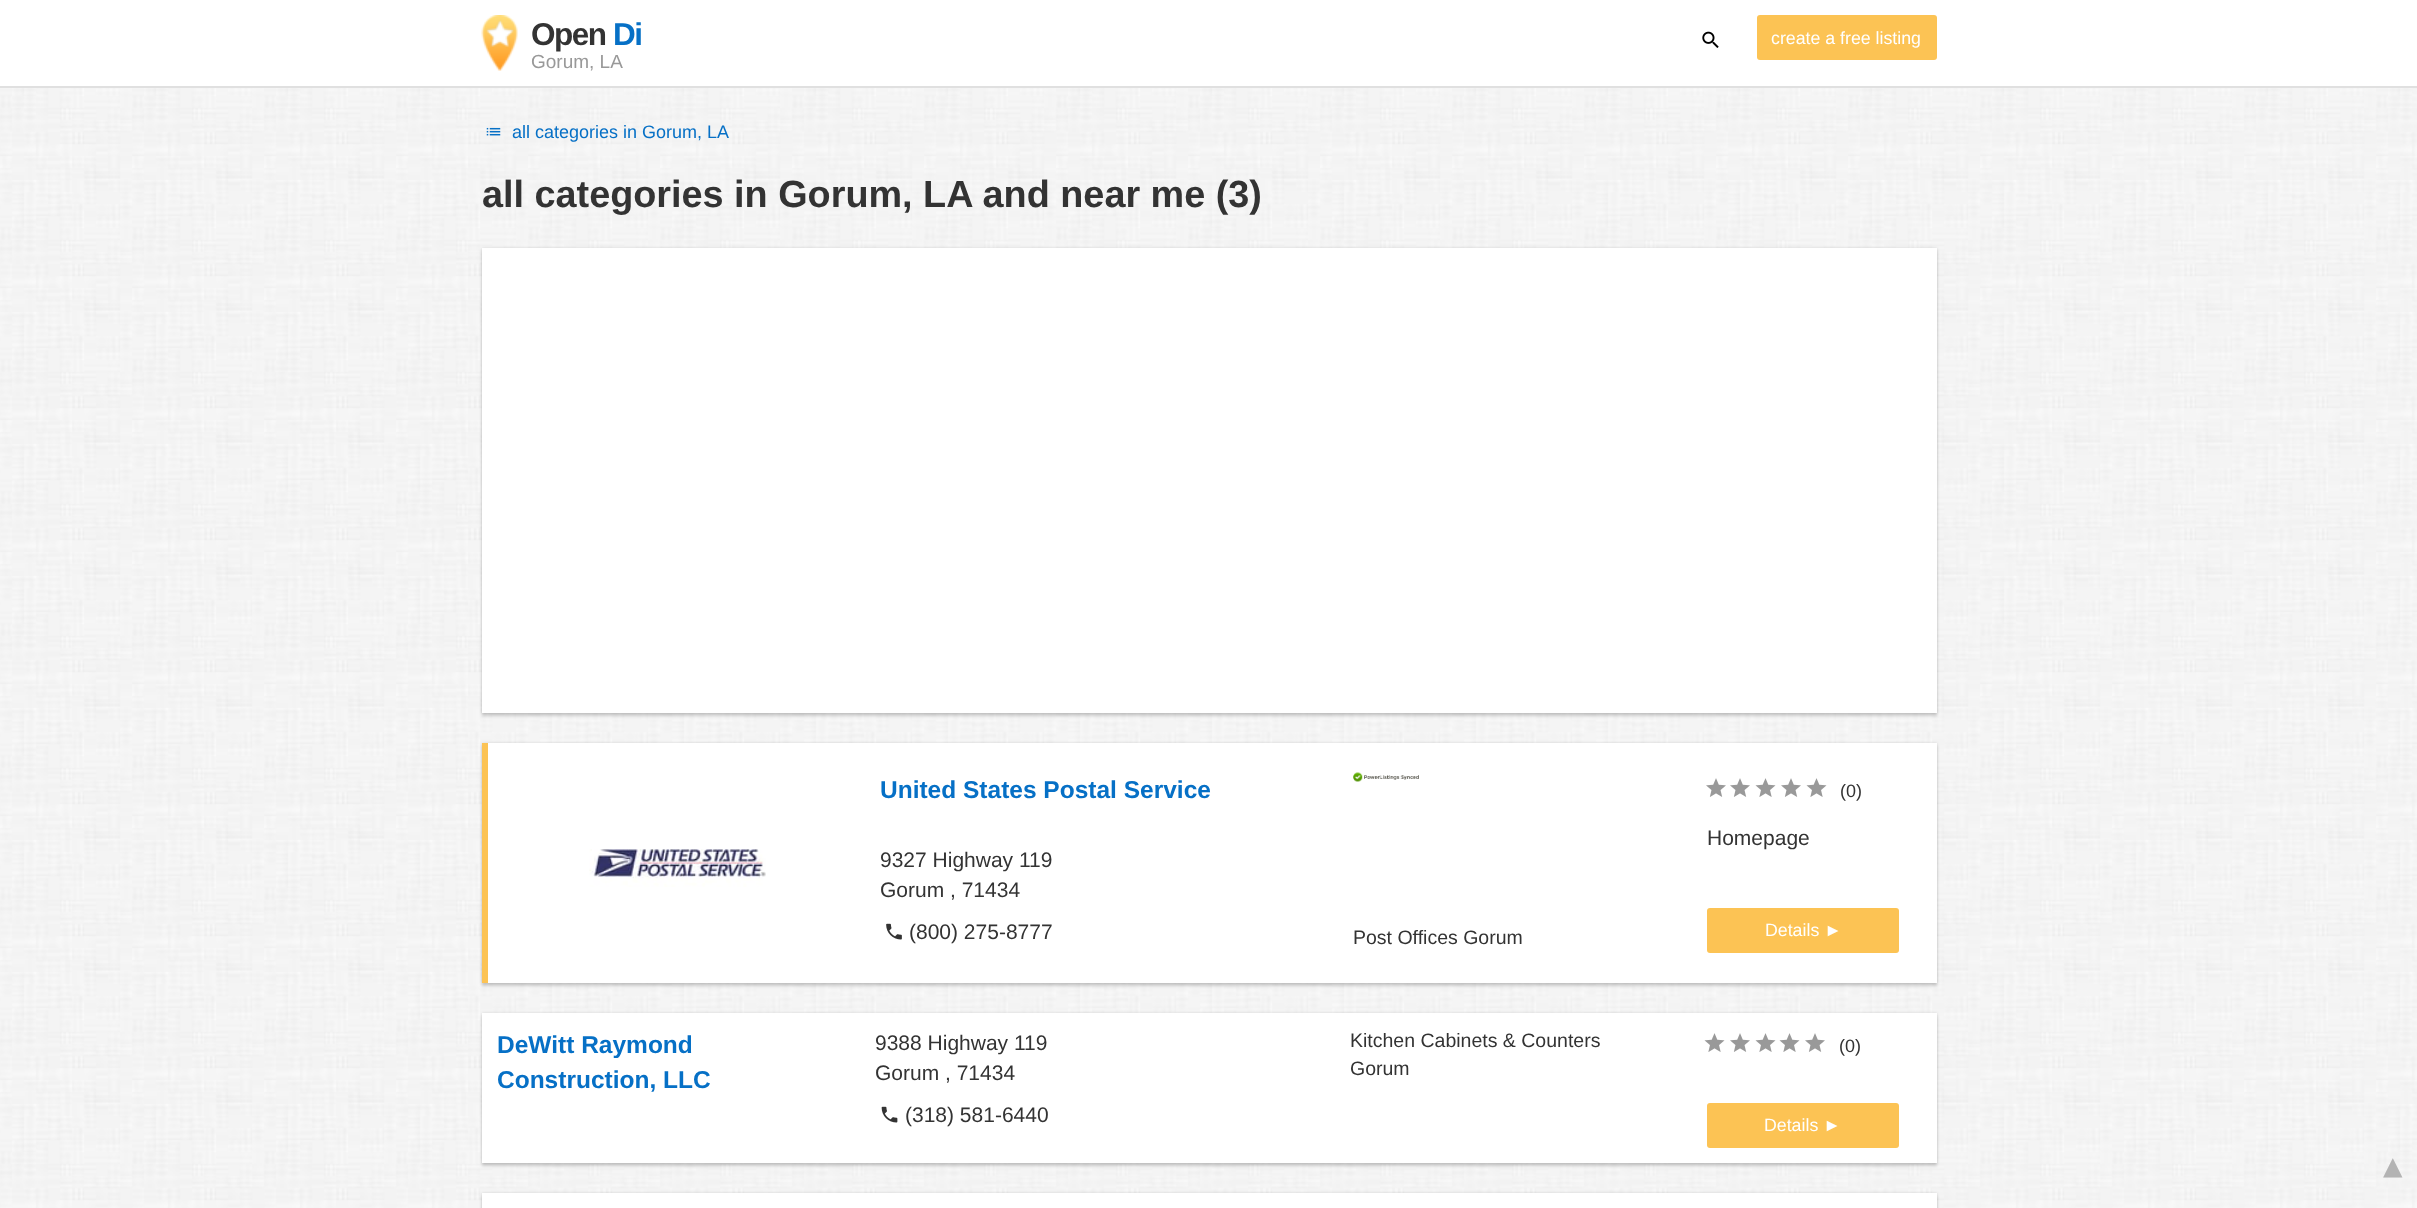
(async () => {
  const canvas = document.querySelector("canvas");
  canvas.width = 2417;
  canvas.height = 1208;
  const ctx = canvas.getContext("2d");
  ctx.miterLimit = 4;
  ctx.fontKerning = "normal";
  async function loadImage(src) {
    const img = new Image();
    img.src = src;
    await img.decode();
    return img;
  }

  ctx.fillStyle = "#ffffff";
  ctx.fillRect(0, 0, 2417, 1208);
  ctx.drawImage(await loadImage("img/1.png"), 0, 88, 2417, 1120);
  ctx.fillStyle = "#e0e0e0";
  ctx.fillRect(0, 86, 2417, 2);
  ctx.drawImage(await loadImage("img/2.png"), 481, 15, 37, 56);
  ctx.drawImage(await loadImage("img/3.png"), 1702, 31, 17, 17);
  ctx.fillStyle = "#fcc354";
  ctx.beginPath();
  ctx.roundRect(1757, 15, 180, 45, 3);
  ctx.fill();
  ctx.drawImage(await loadImage("img/4.png"), 486, 127, 15, 9);
  ctx.fillStyle = "rgba(0, 0, 0, 0.12)";
  ctx.filter = "blur(1.5px)";
  ctx.beginPath();
  ctx.rect(482, 248, 1455, 465);
  ctx.fill();
  ctx.filter = "none";
  ctx.fillStyle = "rgba(0, 0, 0, 0.16)";
  ctx.filter = "blur(1.5px)";
  ctx.beginPath();
  ctx.rect(482, 251, 1455, 465);
  ctx.fill();
  ctx.filter = "none";
  ctx.fillStyle = "#ffffff";
  ctx.fillRect(482, 248, 1455, 465);
  ctx.fillStyle = "rgba(0, 0, 0, 0.12)";
  ctx.filter = "blur(1.5px)";
  ctx.beginPath();
  ctx.rect(482, 743, 1455, 240);
  ctx.fill();
  ctx.filter = "none";
  ctx.fillStyle = "rgba(0, 0, 0, 0.16)";
  ctx.filter = "blur(1.5px)";
  ctx.beginPath();
  ctx.rect(482, 746, 1455, 240);
  ctx.fill();
  ctx.filter = "none";
  ctx.fillStyle = "#ffffff";
  ctx.fillRect(488, 743, 1449, 240);
  ctx.fillStyle = "#fcc354";
  ctx.fillRect(482, 743, 6, 240);
  ctx.drawImage(await loadImage("img/5.png"), 589, 849, 177, 38);
  ctx.drawImage(await loadImage("img/6.png"), 886, 923, 16, 17);
  ctx.drawImage(await loadImage("img/7.png"), 1706, 778, 20, 19);
  ctx.drawImage(await loadImage("img/7.png"), 1730, 778, 20, 19);
  ctx.drawImage(await loadImage("img/8.png"), 1755, 778, 21, 19);
  ctx.drawImage(await loadImage("img/7.png"), 1781, 778, 20, 19);
  ctx.drawImage(await loadImage("img/8.png"), 1806, 778, 21, 19);
  ctx.beginPath();
  ctx.roundRect(1707, 908, 192, 45, 3);
  ctx.fill();
  ctx.drawImage(await loadImage("img/9.png"), 1353, 772, 66, 10);
  ctx.fillStyle = "rgba(0, 0, 0, 0.12)";
  ctx.filter = "blur(1.5px)";
  ctx.beginPath();
  ctx.rect(482, 1013, 1455, 150);
  ctx.fill();
  ctx.filter = "none";
  ctx.fillStyle = "rgba(0, 0, 0, 0.16)";
  ctx.filter = "blur(1.5px)";
  ctx.beginPath();
  ctx.rect(482, 1016, 1455, 150);
  ctx.fill();
  ctx.filter = "none";
  ctx.fillStyle = "#ffffff";
  ctx.fillRect(482, 1013, 1455, 150);
  ctx.drawImage(await loadImage("img/10.png"), 881, 1106, 17, 17);
  ctx.drawImage(await loadImage("img/8.png"), 1704, 1033, 21, 19);
  ctx.drawImage(await loadImage("img/7.png"), 1730, 1033, 20, 19);
  ctx.drawImage(await loadImage("img/8.png"), 1755, 1033, 21, 19);
  ctx.drawImage(await loadImage("img/8.png"), 1779, 1033, 21, 19);
  ctx.drawImage(await loadImage("img/7.png"), 1805, 1033, 20, 19);
  ctx.fillStyle = "#fcc354";
  ctx.beginPath();
  ctx.roundRect(1707, 1103, 192, 45, 3);
  ctx.fill();
  ctx.fillStyle = "rgba(0, 0, 0, 0.12)";
  ctx.filter = "blur(1.5px)";
  ctx.beginPath();
  ctx.rect(482, 1193, 1455, 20);
  ctx.fill();
  ctx.filter = "none";
  ctx.fillStyle = "rgba(0, 0, 0, 0.16)";
  ctx.filter = "blur(1.5px)";
  ctx.beginPath();
  ctx.rect(482, 1196, 1455, 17);
  ctx.fill();
  ctx.filter = "none";
  ctx.fillStyle = "#ffffff";
  ctx.fillRect(482, 1193, 1455, 15);
  ctx.letterSpacing = "-1.5px";
  ctx.font = "bold 31.5px Liberation Sans";
  ctx.fillStyle = "#333333";
  ctx.fillText("Open", 531, 45);
  ctx.fillStyle = "#0670c6";
  ctx.fillText("Di", 613, 45);
  ctx.letterSpacing = "0px";
  ctx.font = "19px Liberation Sans";
  ctx.fillStyle = "#999999";
  ctx.fillText("Gorum, LA", 531, 68);
  ctx.font = "17.75px Liberation Sans";
  ctx.fillStyle = "#ffffff";
  ctx.fillText("create a free listing", 1771, 44);
  ctx.font = "18px Liberation Sans";
  ctx.fillStyle = "#0670c6";
  ctx.fillText("all categories in Gorum, LA", 512, 138);
  ctx.font = "bold 37.8px Liberation Sans";
  ctx.fillStyle = "#333333";
  ctx.fillText("all categories in Gorum, LA and near me (3)", 482, 207);
  ctx.font = "bold 24.5px Liberation Sans";
  ctx.fillStyle = "#0670c6";
  ctx.fillText("United States Postal Service", 880, 798);
  ctx.font = "21px Liberation Sans";
  ctx.fillStyle = "#333333";
  for (const [text, x, y] of [
    ["9327 Highway 119", 880, 867],
    ["Gorum , 71434", 880, 897],
    ["(800) 275-8777", 909, 939],
  ]) {
    ctx.fillText(text, x, y);
  }
  ctx.font = "18px Liberation Sans";
  ctx.fillText("(0)", 1840, 797);
  ctx.font = "21px Liberation Sans";
  ctx.fillText("Homepage", 1707, 845);
  ctx.font = "17.75px Liberation Sans";
  ctx.fillStyle = "#ffffff";
  ctx.fillText("Details ►", 1765, 936);
  ctx.font = "19.5px Liberation Sans";
  ctx.fillStyle = "#333333";
  ctx.fillText("Post Offices Gorum", 1353, 944);
  ctx.font = "bold 24.5px Liberation Sans";
  ctx.fillStyle = "#0670c6";
  ctx.fillText("DeWitt Raymond", 497, 1053);
  ctx.fillText("Construction, LLC", 497, 1088);
  ctx.font = "21px Liberation Sans";
  ctx.fillStyle = "#333333";
  for (const [text, x, y] of [
    ["9388 Highway 119", 875, 1050],
    ["Gorum , 71434", 875, 1080],
    ["(318) 581-6440", 905, 1122],
  ]) {
    ctx.fillText(text, x, y);
  }
  ctx.font = "19.5px Liberation Sans";
  ctx.fillText("Kitchen Cabinets & Counters", 1350, 1047);
  ctx.fillText("Gorum", 1350, 1075);
  ctx.font = "18px Liberation Sans";
  ctx.fillText("(0)", 1839, 1052);
  ctx.font = "17.75px Liberation Sans";
  ctx.fillStyle = "#ffffff";
  ctx.fillText("Details ►", 1764, 1131);
  ctx.font = "39px DejaVu Sans";
  ctx.fillStyle = "#b3b3b3";
  ctx.fillText("▴", 2383, 1178);
})();
